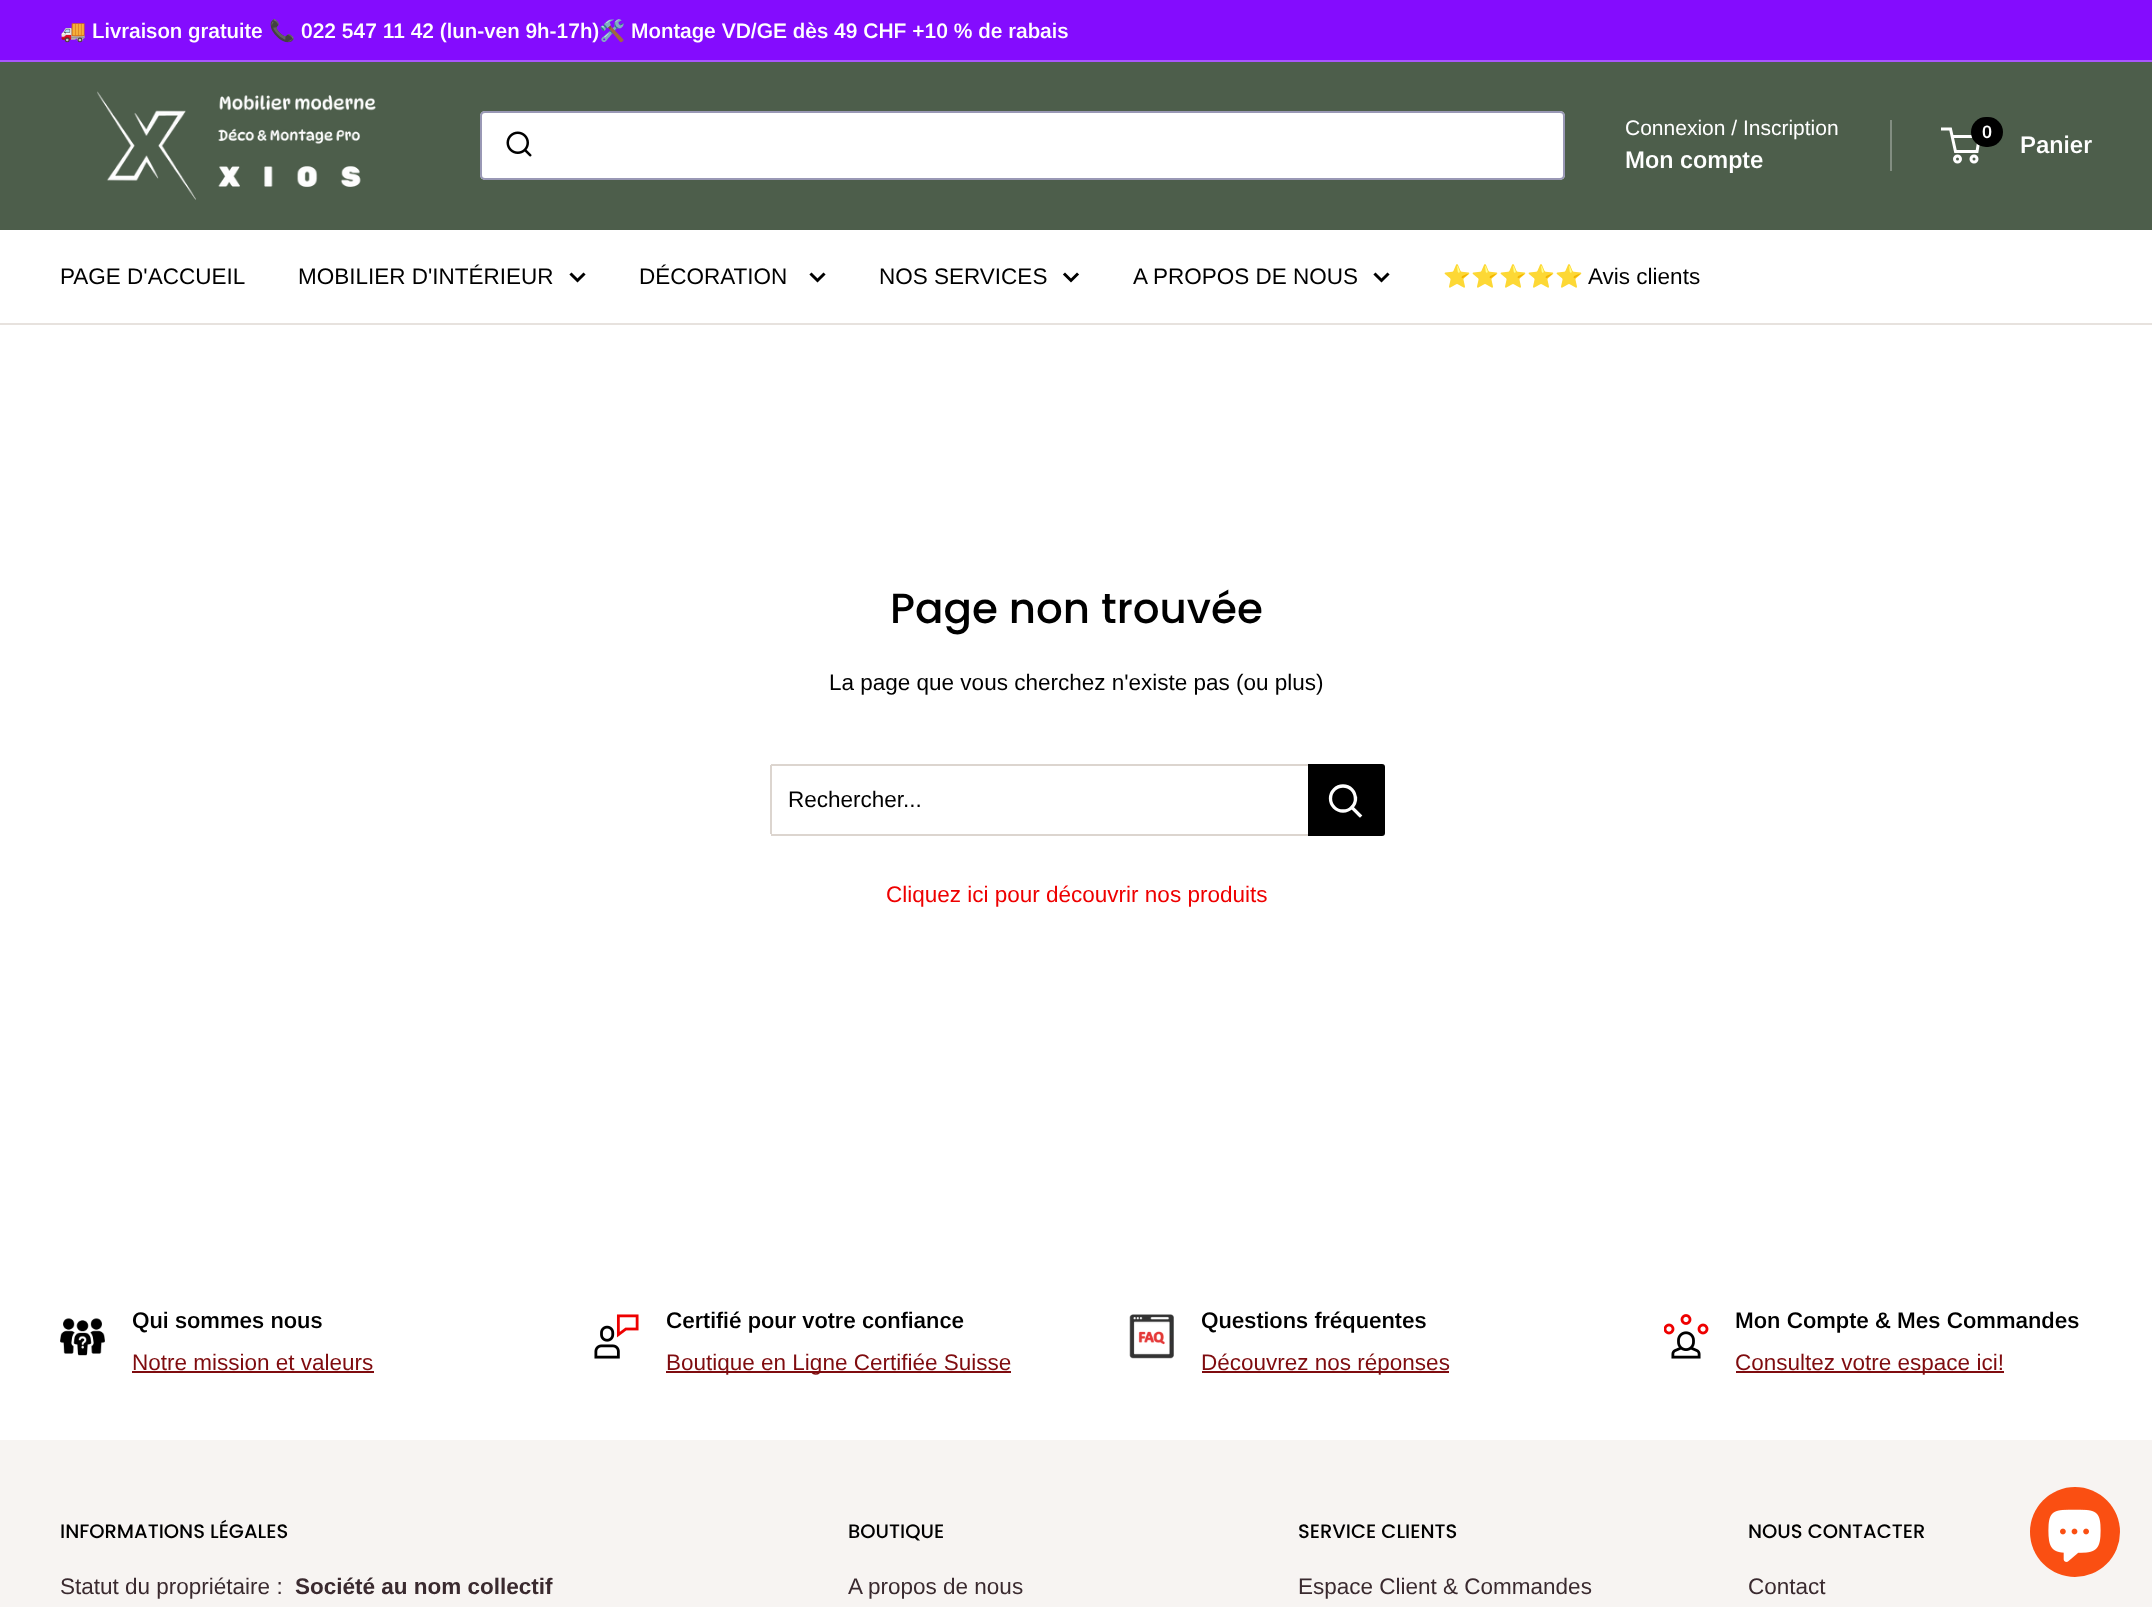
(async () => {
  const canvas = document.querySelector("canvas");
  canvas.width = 2152;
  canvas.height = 1607;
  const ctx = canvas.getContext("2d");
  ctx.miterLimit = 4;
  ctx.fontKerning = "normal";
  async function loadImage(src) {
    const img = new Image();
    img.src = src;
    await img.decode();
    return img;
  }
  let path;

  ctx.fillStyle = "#ffffff";
  ctx.fillRect(0, 0, 2152, 1607);
  for (const [x, y, w, h, color] of [
    [0, 0, 2152, 60, "#840cfe"],
    [0, 60, 2152, 2, "#a955fe"],
    [0, 62, 2152, 168, "#4d5e4b"],
  ]) {
    ctx.fillStyle = color;
    ctx.fillRect(x, y, w, h);
  }
  ctx.drawImage(await loadImage("img/1.png"), 97, 91, 279, 109);
  ctx.fillStyle = "#ffffff";
  ctx.beginPath();
  ctx.roundRect(480, 111, 1085, 69, 5);
  ctx.fill();
  ctx.beginPath();
  ctx.roundRect(481, 112, 1083, 67, 4);
  ctx.strokeStyle = "rgba(128, 126, 163, 0.8)";
  ctx.lineWidth = 2;
  ctx.stroke();
  ctx.drawImage(await loadImage("img/2.png"), 506, 131, 26, 26);
  ctx.fillStyle = "#828e81";
  ctx.fillRect(1890, 120, 2, 51);
  ctx.beginPath();
  ctx.arc(1957.5, 159, 3, 0, Math.PI * 2);
  ctx.strokeStyle = "#ffffff";
  ctx.lineWidth = 3;
  ctx.stroke();
  ctx.beginPath();
  ctx.arc(1974, 159, 3, 0, Math.PI * 2);
  ctx.stroke();
  path = new Path2D("M1952 136.5H1979.5L1977 151.5H1955.5L1950.5 129H1941");
  ctx.stroke(path);
  ctx.fillStyle = "#000000";
  ctx.beginPath();
  ctx.roundRect(1971, 117, 32, 30, 15);
  ctx.fill();
  ctx.fillStyle = "#e7e2de";
  ctx.fillRect(0, 323, 2152, 2);
  path = new Path2D("M583.5 274.5L577.5 280.5L571.5 274.5");
  ctx.strokeStyle = "#000000";
  ctx.lineCap = "square";
  ctx.stroke(path);
  path = new Path2D("M823.5 274.5L817.5 280.5L811.5 274.5");
  ctx.stroke(path);
  path = new Path2D("M1077 274.5L1071 280.5L1065 274.5");
  ctx.stroke(path);
  path = new Path2D("M1387.5 274.5L1381.5 280.5L1375.5 274.5");
  ctx.stroke(path);
  for (const [x, y, w, h, color] of [
    [771, 764, 537, 2, "#dcd5cf"],
    [771, 834, 537, 2, "#dcd5cf"],
    [770, 765, 2, 69, "#dcd5cf"],
  ]) {
    ctx.fillStyle = color;
    ctx.fillRect(x, y, w, h);
  }
  ctx.fillStyle = "#000000";
  ctx.beginPath();
  ctx.roundRect(1308, 764, 77, 72, [0, 3, 3, 0]);
  ctx.fill();
  path = new Path2D("M1360 815.5L1352 807.5");
  ctx.strokeStyle = "#ffffff";
  ctx.lineWidth = 3.3;
  ctx.stroke(path);
  ctx.beginPath();
  ctx.arc(1343, 798.5, 12.5, 0, Math.PI * 2);
  ctx.stroke();
  ctx.drawImage(await loadImage("img/3.png"), 60, 1318, 45, 38);
  ctx.fillStyle = "#7f0c0f";
  ctx.fillRect(132, 1371, 242, 2);
  ctx.drawImage(await loadImage("img/4.png"), 594, 1314, 45, 45);
  ctx.fillRect(666, 1371, 345, 2);
  ctx.drawImage(await loadImage("img/5.png"), 1129, 1314, 45, 45);
  ctx.fillRect(1202, 1371, 247, 2);
  ctx.drawImage(await loadImage("img/6.png"), 1664, 1314, 45, 45);
  ctx.fillRect(1736, 1371, 268, 2);
  ctx.fillStyle = "#f7f4f2";
  ctx.fillRect(0, 1440, 2152, 167);
  ctx.fillStyle = "#fa4f12";
  ctx.beginPath();
  ctx.arc(2075, 1532, 45, 0, Math.PI * 2);
  ctx.fill();
  ctx.drawImage(await loadImage("img/7.png"), 2048, 1509, 53, 53);
  ctx.font = "bold 21px Noto Color Emoji";
  ctx.fillStyle = "#ffffff";
  ctx.fillText("🚚", 60, 38);
  ctx.font = "600 21px Arimo";
  ctx.fillText("Livraison gratuite", 92, 38);
  ctx.font = "bold 21px Noto Color Emoji";
  ctx.fillText("📞", 269, 38);
  ctx.font = "600 21px Arimo";
  ctx.fillText("022 547 11 42 (lun-ven 9h-17h)", 301, 38);
  ctx.font = "bold 21px Noto Color Emoji";
  ctx.fillText("🛠️", 599, 38);
  ctx.font = "600 21px Arimo";
  ctx.fillText("Montage VD/GE dès 49 CHF +10 % de rabais", 631, 38);
  ctx.font = "21px Arimo";
  ctx.fillText("Connexion / Inscription", 1625, 135);
  ctx.font = "600 24px Arimo";
  ctx.fillText("Mon compte", 1625, 168);
  ctx.font = "600 18px Arimo";
  ctx.fillText("0", 1982, 138);
  ctx.font = "600 24px Arimo";
  ctx.fillText("Panier", 2020, 153);
  ctx.font = "22.5px Arimo";
  ctx.fillStyle = "#000000";
  for (const [text, x, y] of [
    ["PAGE D'ACCUEIL", 60, 284],
    ["MOBILIER D'INTÉRIEUR", 298, 284],
    ["DÉCORATION", 639, 284],
    ["NOS SERVICES", 879, 284],
    ["A PROPOS DE NOUS", 1133, 284],
  ]) {
    ctx.fillText(text, x, y);
  }
  ctx.font = "22.5px Noto Color Emoji";
  ctx.fillText("⭐⭐⭐⭐⭐", 1443, 284);
  ctx.font = "22.5px Arimo";
  ctx.fillText("Avis clients", 1588, 284);
  ctx.font = "500 42px Poppins";
  ctx.fillText("Page non trouvée", 890, 623);
  ctx.font = "22.5px Arimo";
  ctx.fillText("La page que vous cherchez n'existe pas (ou plus)", 829, 690);
  ctx.fillText("Rechercher...", 788, 807);
  ctx.fillStyle = "#ee0000";
  ctx.fillText("Cliquez ici pour découvrir nos produits", 886, 902);
  ctx.font = "600 22.5px Arimo";
  ctx.fillStyle = "#000000";
  ctx.fillText("Qui sommes nous", 132, 1328);
  ctx.font = "22.5px Arimo";
  ctx.fillStyle = "#7f0c0f";
  ctx.fillText("Notre mission et valeurs", 132, 1370);
  ctx.font = "600 22.5px Arimo";
  ctx.fillStyle = "#000000";
  ctx.fillText("Certifié pour votre confiance", 666, 1328);
  ctx.font = "22.5px Arimo";
  ctx.fillStyle = "#7f0c0f";
  ctx.fillText("Boutique en Ligne Certifiée Suisse", 666, 1370);
  ctx.font = "600 22.5px Arimo";
  ctx.fillStyle = "#000000";
  ctx.fillText("Questions fréquentes", 1201, 1328);
  ctx.font = "22.5px Arimo";
  ctx.fillStyle = "#7f0c0f";
  ctx.fillText("Découvrez nos réponses", 1201, 1370);
  ctx.font = "600 22.5px Arimo";
  ctx.fillStyle = "#000000";
  ctx.fillText("Mon Compte & Mes Commandes", 1735, 1328);
  ctx.font = "22.5px Arimo";
  ctx.fillStyle = "#7f0c0f";
  ctx.fillText("Consultez votre espace ici!", 1735, 1370);
  ctx.font = "500 19.5px Poppins";
  ctx.fillStyle = "#000000";
  ctx.fillText("INFORMATIONS LÉGALES", 60, 1538);
  ctx.font = "22.5px Arimo";
  ctx.fillStyle = "#3a2a2f";
  ctx.fillText("Statut du propriétaire :", 60, 1594);
  ctx.font = "bold 22.5px Arimo";
  ctx.fillText("Société au nom collectif", 295, 1594);
  ctx.font = "500 19.5px Poppins";
  ctx.fillStyle = "#000000";
  ctx.fillText("BOUTIQUE", 848, 1538);
  ctx.font = "22.5px Arimo";
  ctx.fillStyle = "#3a2a2f";
  ctx.fillText("A propos de nous", 848, 1594);
  ctx.font = "500 19.5px Poppins";
  ctx.fillStyle = "#000000";
  ctx.fillText("SERVICE CLIENTS", 1298, 1538);
  ctx.font = "22.5px Arimo";
  ctx.fillStyle = "#3a2a2f";
  ctx.fillText("Espace Client & Commandes", 1298, 1594);
  ctx.font = "500 19.5px Poppins";
  ctx.fillStyle = "#000000";
  ctx.fillText("NOUS CONTACTER", 1748, 1538);
  ctx.font = "22.5px Arimo";
  ctx.fillStyle = "#3a2a2f";
  ctx.fillText("Contact", 1748, 1594);
})();
